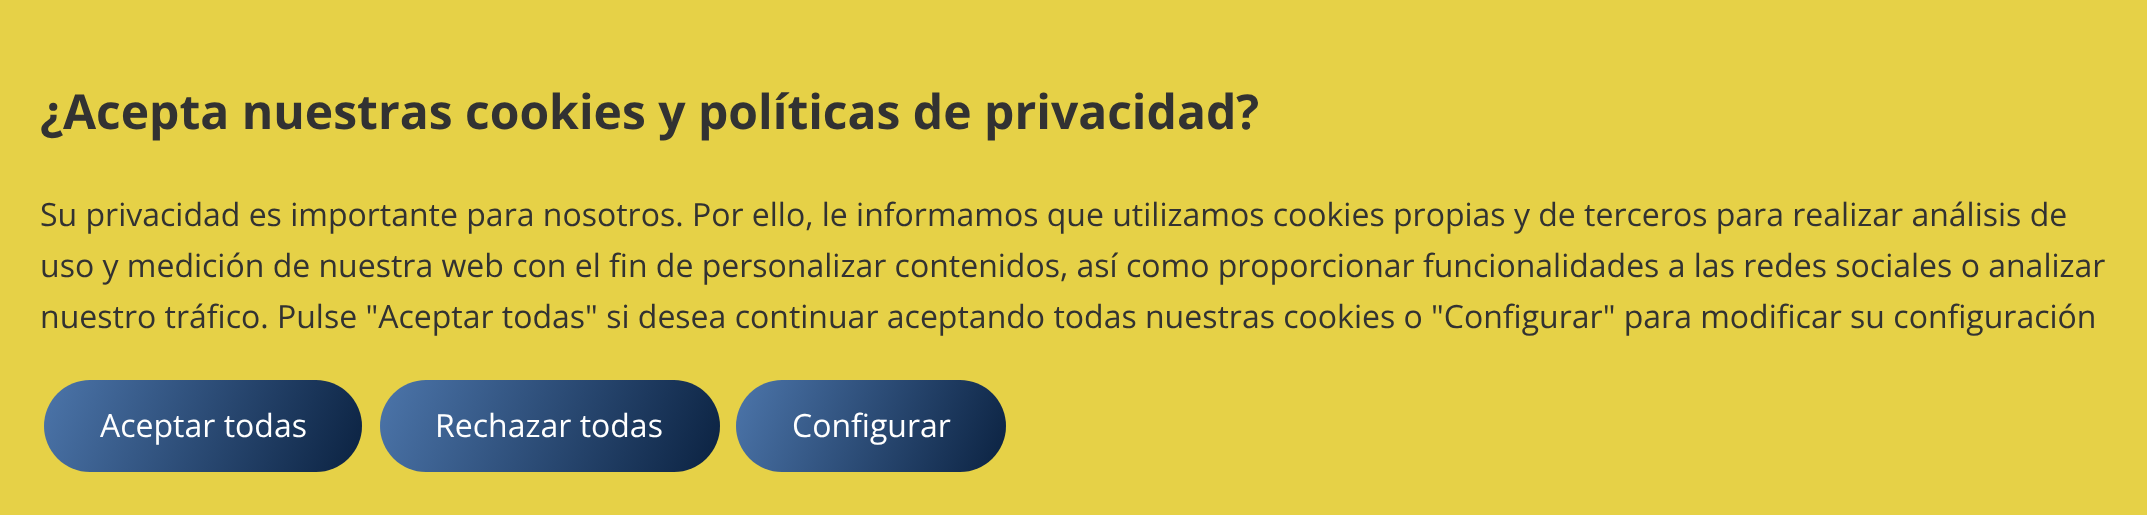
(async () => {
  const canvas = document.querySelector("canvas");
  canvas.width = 2147;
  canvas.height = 515;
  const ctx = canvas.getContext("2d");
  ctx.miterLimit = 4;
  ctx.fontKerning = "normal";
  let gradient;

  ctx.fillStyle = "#e6d147";
  ctx.fillRect(0, 0, 2147, 515);
  gradient = ctx.createLinearGradient(50, 364, 356, 488);
  gradient.addColorStop(0, "#4c75aa");
  gradient.addColorStop(1, "#0b2241");
  ctx.fillStyle = gradient;
  ctx.beginPath();
  ctx.roundRect(44, 380, 318, 92, 46);
  ctx.fill();
  gradient = ctx.createLinearGradient(388, 360, 712, 492);
  gradient.addColorStop(0, "#4c75aa");
  gradient.addColorStop(1, "#0b2241");
  ctx.fillStyle = gradient;
  ctx.beginPath();
  ctx.roundRect(380, 380, 340, 92, 46);
  ctx.fill();
  gradient = ctx.createLinearGradient(739, 373, 1003, 479);
  gradient.addColorStop(0, "#4c75aa");
  gradient.addColorStop(1, "#0b2241");
  ctx.fillStyle = gradient;
  ctx.beginPath();
  ctx.roundRect(736, 380, 270, 92, 46);
  ctx.fill();
  ctx.font = "bold 48px Open Sans";
  ctx.fillStyle = "#323232";
  ctx.fillText("¿Acepta nuestras cookies y políticas de privacidad?", 40, 129);
  ctx.font = "32px Open Sans";
  for (const [text, x, y] of [
    ["Su privacidad es importante para nosotros. Por ello, le informamos que utilizamos cookies propias y de terceros para realizar análisis de", 40, 226],
    ["uso y medición de nuestra web con el fin de personalizar contenidos, así como proporcionar funcionalidades a las redes sociales o analizar", 40, 277],
    ["nuestro tráfico. Pulse \"Aceptar todas\" si desea continuar aceptando todas nuestras cookies o \"Configurar\" para modificar su configuración", 40, 328],
  ]) {
    ctx.fillText(text, x, y);
  }
  ctx.fillStyle = "#ffffff";
  for (const [text, x, y] of [
    ["Aceptar todas", 100, 437],
    ["Rechazar todas", 435, 437],
    ["Configurar", 792, 437],
  ]) {
    ctx.fillText(text, x, y);
  }
})();
